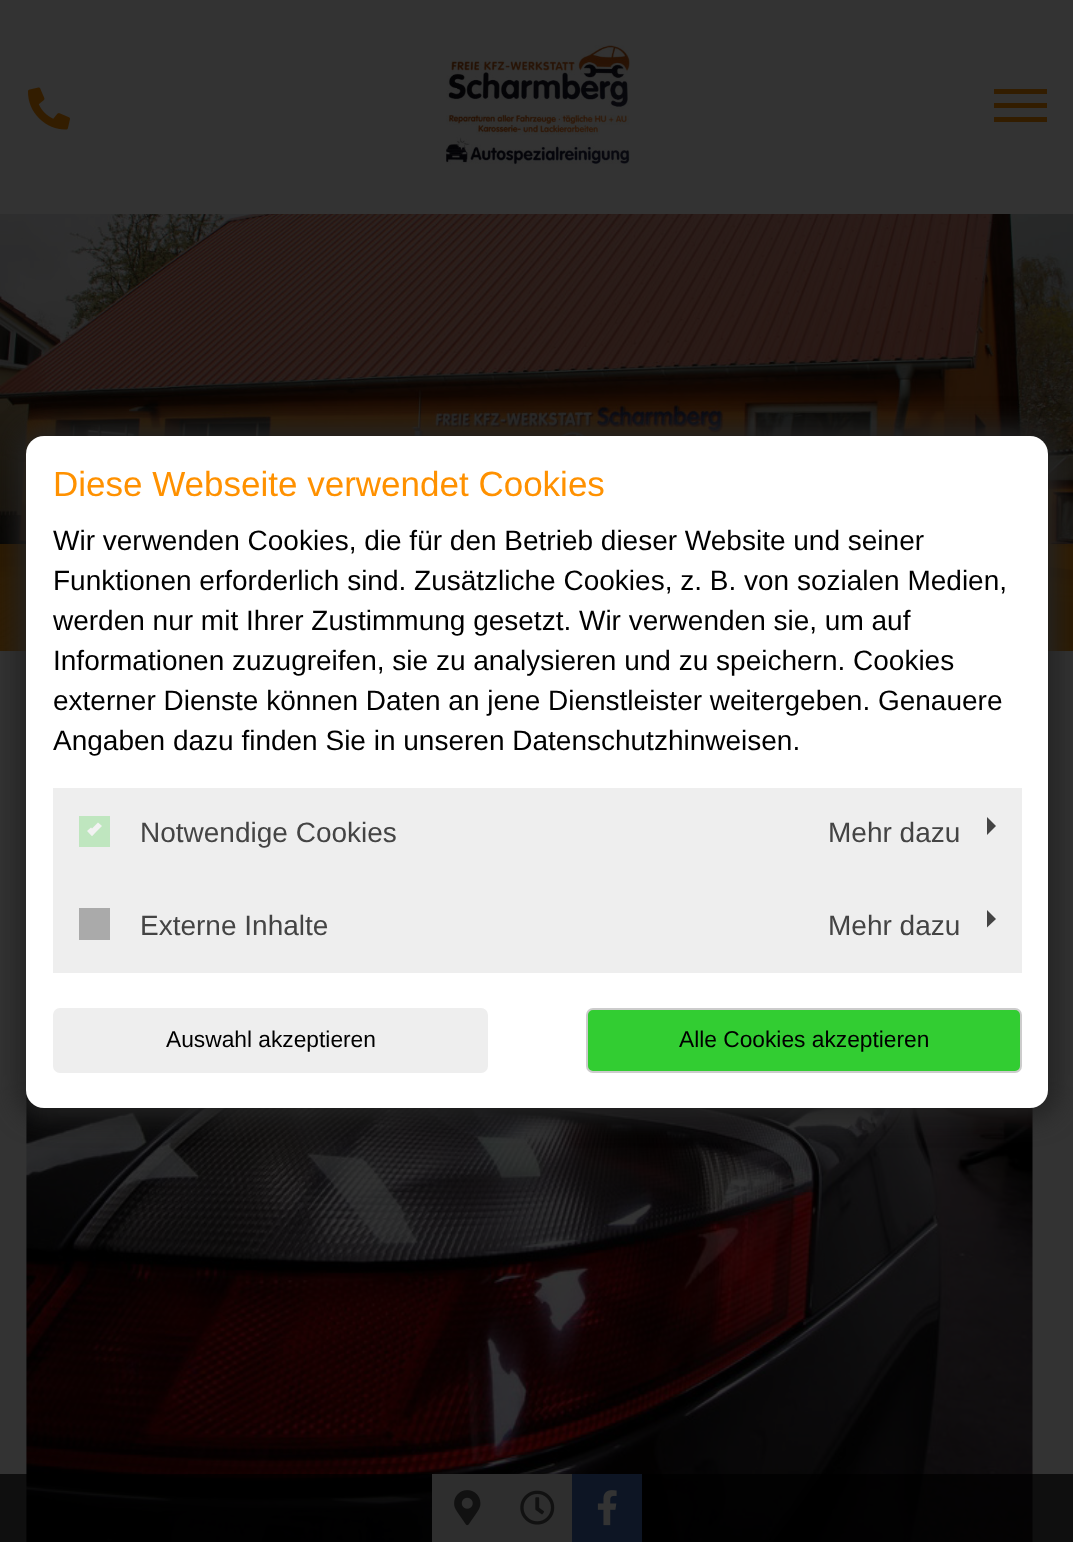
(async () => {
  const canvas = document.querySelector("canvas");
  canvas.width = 1073;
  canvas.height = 1542;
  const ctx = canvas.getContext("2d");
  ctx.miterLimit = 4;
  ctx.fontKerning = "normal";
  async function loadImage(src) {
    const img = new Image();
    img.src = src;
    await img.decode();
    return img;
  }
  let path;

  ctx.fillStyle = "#333333";
  ctx.fillRect(0, 0, 1073, 1542);
  ctx.drawImage(await loadImage("img/1.png"), 28, 87, 42, 43);
  ctx.drawImage(await loadImage("img/2.png"), 446, 45, 184, 120);
  for (const [x, y, w, h, color] of [
    [994, 89, 53, 5, "#331d00"],
    [994, 103, 53, 5, "#331d00"],
    [994, 117, 53, 5, "#331d00"],
  ]) {
    ctx.fillStyle = color;
    ctx.fillRect(x, y, w, h);
  }
  ctx.drawImage(await loadImage("img/3.png"), 0, 214, 1073, 437);
  ctx.fillStyle = "rgba(51, 29, 0, 0.85)";
  ctx.fillRect(0, 544, 1073, 107);
  ctx.drawImage(await loadImage("img/4.png"), 26, 1090, 1007, 452);
  ctx.fillStyle = "rgba(0, 0, 0, 0.7)";
  ctx.fillRect(0, 1474, 1073, 68);
  ctx.fillStyle = "#2e2e2e";
  ctx.fillRect(432, 1474, 140, 68);
  ctx.drawImage(await loadImage("img/5.png"), 454, 1490, 27, 36);
  ctx.fillStyle = "#0d1524";
  ctx.fillRect(572, 1474, 70, 68);
  ctx.drawImage(await loadImage("img/6.png"), 597, 1490, 20, 36);
  ctx.drawImage(await loadImage("img/7.png"), 520, 1490, 35, 35);
  ctx.fillStyle = "#222222";
  ctx.filter = "blur(13px)";
  ctx.beginPath();
  ctx.roundRect(18, 427, 1039, 690, 26);
  ctx.fill();
  ctx.filter = "none";
  ctx.fillStyle = "#ffffff";
  ctx.beginPath();
  ctx.roundRect(26, 436, 1022, 672, 18);
  ctx.fill();
  ctx.fillStyle = "#eeeeee";
  ctx.fillRect(53, 788, 969, 185);
  ctx.fillStyle = "#bfe6bf";
  ctx.fillRect(79, 816, 31, 31);
  ctx.fillStyle = "#f2f2f2";
  path = new Path2D("M98 822.5L102 826L92 836L88.5 832Z");
  ctx.fill(path);
  path = new Path2D("M91 827.5L95.5 832L92 836L87 831Z");
  ctx.fill(path);
  ctx.fillStyle = "#444444";
  path = new Path2D("M987 835V817L996 826Z");
  ctx.fill(path);
  ctx.fillStyle = "#aaaaaa";
  ctx.fillRect(79, 908, 31, 32);
  ctx.fillStyle = "#444444";
  path = new Path2D("M987 927.5V910L996 919Z");
  ctx.fill(path);
  ctx.fillStyle = "#eeeeee";
  ctx.beginPath();
  ctx.roundRect(54, 1009, 433, 63, 6);
  ctx.fill();
  ctx.strokeStyle = "#eeeeee";
  ctx.lineWidth = 2;
  ctx.stroke();
  ctx.fillStyle = "#32cd32";
  ctx.beginPath();
  ctx.roundRect(587, 1009, 434, 63, 6);
  ctx.fill();
  ctx.strokeStyle = "#cccccc";
  ctx.stroke();
  ctx.font = "35px Liberation Sans";
  ctx.fillStyle = "#ff9100";
  ctx.fillText("Diese Webseite verwendet Cookies", 53, 496);
  ctx.font = "28px Liberation Sans";
  ctx.fillStyle = "#000000";
  for (const [text, x, y] of [
    ["Wir verwenden Cookies, die für den Betrieb dieser Website und seiner", 53, 550],
    ["Funktionen erforderlich sind. Zusätzliche Cookies, z. B. von sozialen Medien,", 53, 590],
    ["werden nur mit Ihrer Zustimmung gesetzt. Wir verwenden sie, um auf", 53, 630],
    ["Informationen zuzugreifen, sie zu analysieren und zu speichern. Cookies", 53, 670],
    ["externer Dienste können Daten an jene Dienstleister weitergeben. Genauere", 53, 710],
    ["Angaben dazu finden Sie in unseren Datenschutzhinweisen.", 53, 750],
  ]) {
    ctx.fillText(text, x, y);
  }
  ctx.fillStyle = "#444444";
  for (const [text, x, y] of [
    ["Notwendige Cookies", 140, 842],
    ["Mehr dazu", 828, 842],
    ["Externe Inhalte", 140, 935],
    ["Mehr dazu", 828, 935],
  ]) {
    ctx.fillText(text, x, y);
  }
  ctx.font = "22.75px Liberation Sans";
  ctx.fillStyle = "#000000";
  ctx.fillText("Auswahl akzeptieren", 166, 1047);
  ctx.fillText("Alle Cookies akzeptieren", 679, 1047);
})();
